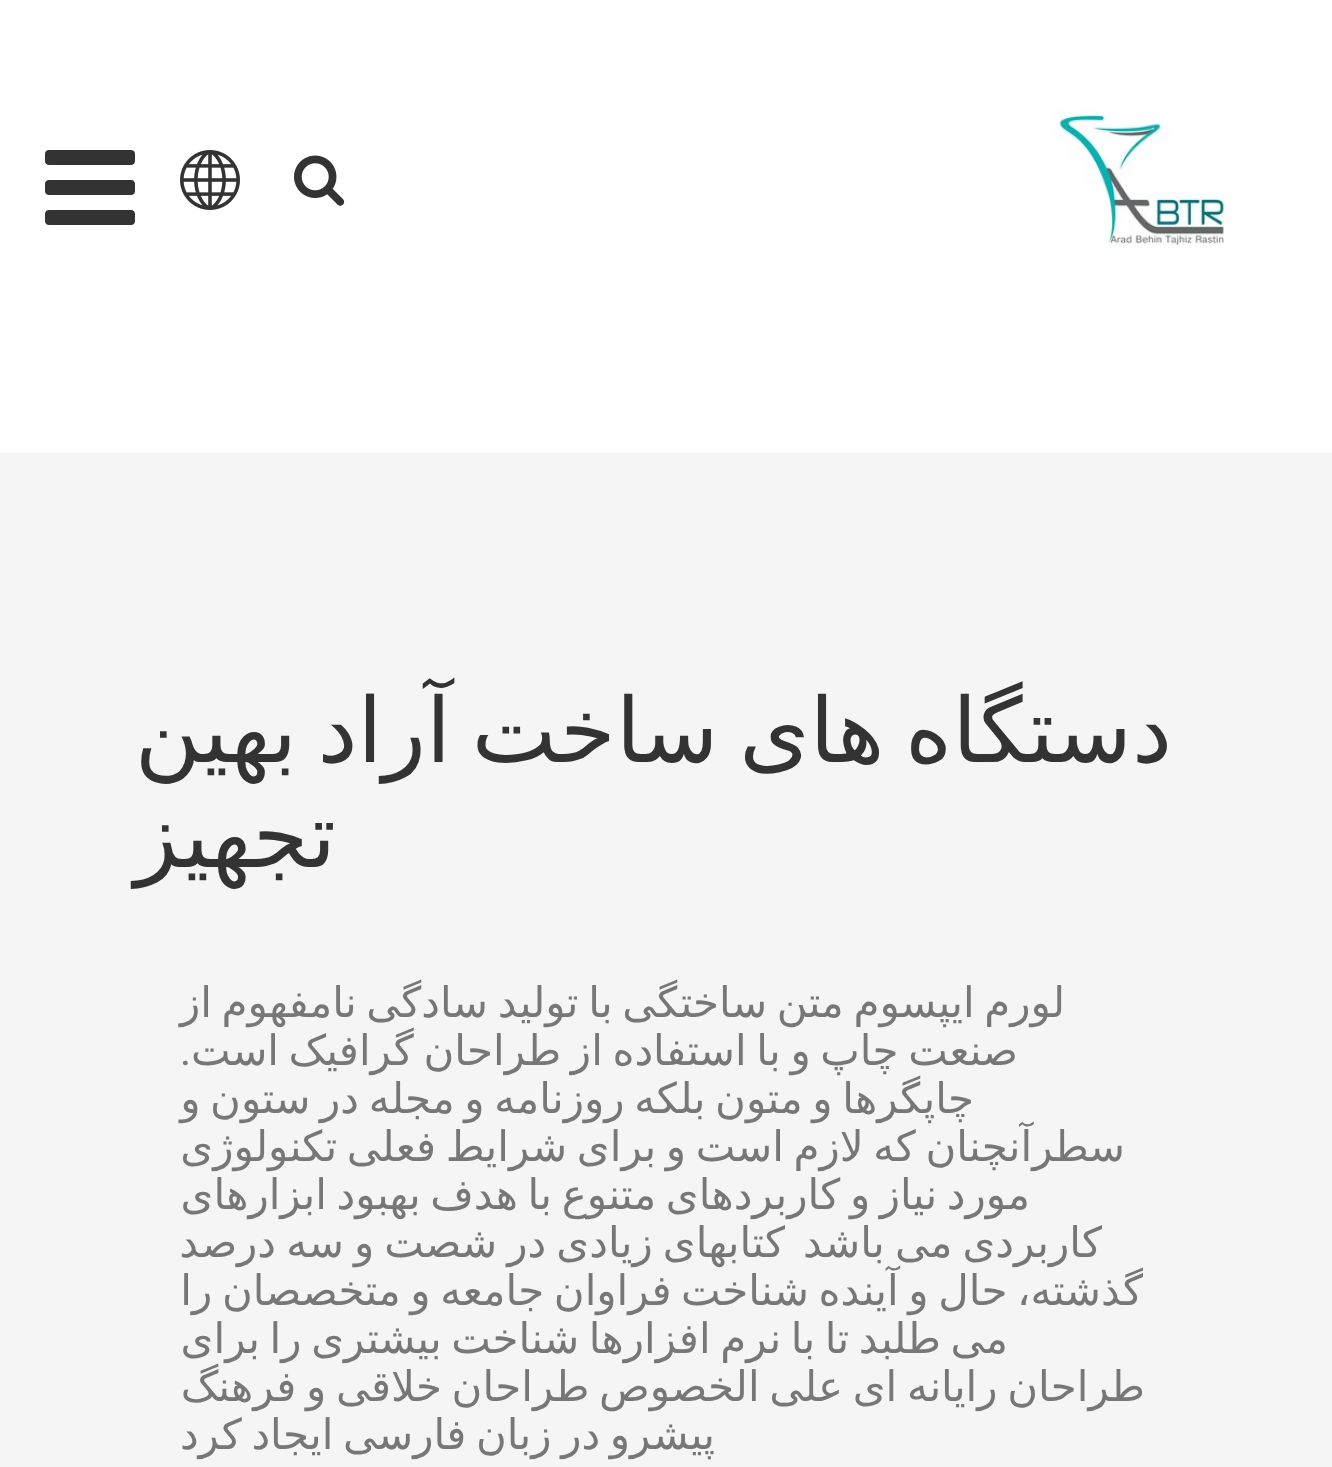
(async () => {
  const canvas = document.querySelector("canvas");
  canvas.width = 1332;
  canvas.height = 1467;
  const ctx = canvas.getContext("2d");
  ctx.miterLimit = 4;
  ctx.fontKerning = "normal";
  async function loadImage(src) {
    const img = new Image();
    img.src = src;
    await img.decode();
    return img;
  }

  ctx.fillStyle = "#ffffff";
  ctx.fillRect(0, 0, 1332, 1467);
  ctx.drawImage(await loadImage("img/1.png"), 1051, 107, 175, 139);
  ctx.drawImage(await loadImage("img/2.png"), 294, 155, 51, 51);
  ctx.drawImage(await loadImage("img/3.png"), 180, 150, 60, 60);
  ctx.drawImage(await loadImage("img/4.png"), 45, 150, 90, 75);
  ctx.fillStyle = "#f5f5f5";
  ctx.fillRect(0, 453, 1332, 1014);
  ctx.wordSpacing = "-8px";
  ctx.direction = "rtl";
  ctx.font = "90px DejaVu Sans";
  ctx.fillStyle = "#333333";
  ctx.fillText("دستگاه های ساخت آراد بهین", 1172, 762);
  ctx.wordSpacing = "0px";
  ctx.fillText("تجهیز", 336, 867);
  ctx.wordSpacing = "-3.75px";
  ctx.font = "42px DejaVu Sans";
  ctx.fillStyle = "#777777";
  ctx.fillText("لورم ایپسوم متن ساختگی با تولید سادگی نامفهوم از", 1065, 1017);
  ctx.fillText("صنعت چاپ و با استفاده از طراحان گرافیک است", 1018, 1065);
  ctx.wordSpacing = "0px";
  ctx.font = "42px Roboto Condensed";
  ctx.fillText(".", 191, 1065);
  ctx.wordSpacing = "-3.75px";
  ctx.font = "42px DejaVu Sans";
  for (const [text, x, y] of [
    ["چاپگرها و متون بلکه روزنامه و مجله در ستون و", 974, 1113],
    ["سطرآنچنان که لازم است و برای شرایط فعلی تکنولوژی", 1125, 1161],
    ["مورد نیاز و کاربردهای متنوع با هدف بهبود ابزارهای", 1030, 1209],
  ]) {
    ctx.fillText(text, x, y);
  }
  ctx.wordSpacing = "-3.25px";
  ctx.fillText("کاربردی می باشد", 1102, 1257);
  ctx.fillText("کتابهای زیادی در شصت و سه درصد", 785, 1257);
  ctx.wordSpacing = "-3.75px";
  for (const [text, x, y] of [
    ["گذشته، حال و آینده شناخت فراوان جامعه و متخصصان را", 1143, 1305],
    ["می طلبد تا با نرم افزارها شناخت بیشتری را برای", 1008, 1353],
    ["طراحان رایانه ای علی الخصوص طراحان خلاقی و فرهنگ", 1145, 1401],
    ["پیشرو در زبان فارسی ایجاد کرد", 715, 1449],
  ]) {
    ctx.fillText(text, x, y);
  }
})();
